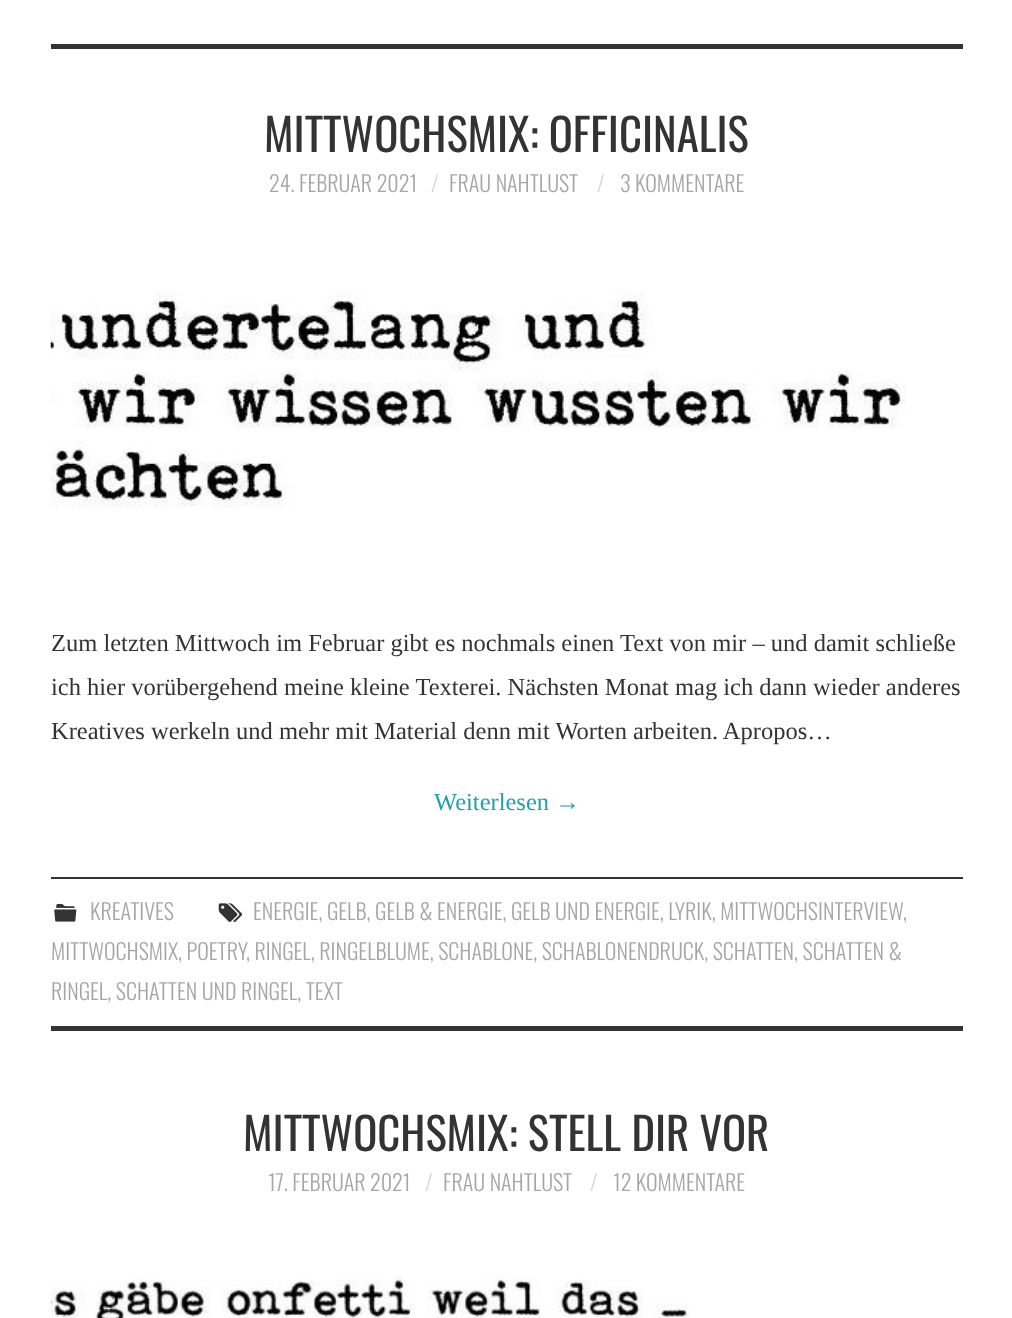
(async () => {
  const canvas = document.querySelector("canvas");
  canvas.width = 1012;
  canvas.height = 1318;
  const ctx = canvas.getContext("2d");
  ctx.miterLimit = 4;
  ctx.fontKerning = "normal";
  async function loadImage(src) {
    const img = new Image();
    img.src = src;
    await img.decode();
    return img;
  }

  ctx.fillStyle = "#ffffff";
  ctx.fillRect(0, 0, 1012, 1318);
  ctx.fillStyle = "#333333";
  ctx.fillRect(51, 44, 912, 5);
  ctx.drawImage(await loadImage("img/1.png"), 50, 291, 856, 217);
  ctx.fillRect(51, 877, 912, 2);
  ctx.fillRect(51, 1026, 912, 5);
  ctx.drawImage(await loadImage("img/2.png"), 218, 903, 25, 19);
  ctx.drawImage(await loadImage("img/3.png"), 54, 903, 23, 19);
  ctx.drawImage(await loadImage("img/4.png"), 50, 1275, 639, 43);
  ctx.font = "44.75px Oswald";
  ctx.fillText("MITTWOCHSMIX: OFFICINALIS", 264, 152);
  ctx.font = "300 22.05px Oswald";
  ctx.fillStyle = "#a6a6a6";
  ctx.fillText("24. FEBRUAR 2021", 269, 192);
  ctx.fillStyle = "#d6d6d6";
  ctx.fillText("/", 431, 192);
  ctx.fillStyle = "#a6a6a6";
  ctx.fillText("FRAU NAHTLUST", 449, 192);
  ctx.fillStyle = "#d6d6d6";
  ctx.fillText("/", 597, 192);
  ctx.fillStyle = "#a6a6a6";
  ctx.fillText("3 KOMMENTARE", 620, 192);
  ctx.font = "24.5px Liberation Serif";
  ctx.fillStyle = "#333333";
  for (const [text, x, y] of [
    ["Zum letzten Mittwoch im Februar gibt es nochmals einen Text von mir – und damit schließe", 51, 651],
    ["ich hier vorübergehend meine kleine Texterei. Nächsten Monat mag ich dann wieder anderes", 51, 695],
    ["Kreatives werkeln und mehr mit Material denn mit Worten arbeiten. Apropos…", 51, 739],
  ]) {
    ctx.fillText(text, x, y);
  }
  ctx.fillStyle = "#1fa0ae";
  ctx.fillText("Weiterlesen →", 434, 810);
  ctx.font = "300 22.05px Oswald";
  ctx.fillStyle = "#a6a6a6";
  for (const [text, x, y] of [
    ["ENERGIE, GELB, GELB & ENERGIE, GELB UND ENERGIE, LYRIK, MITTWOCHSINTERVIEW", 253, 920],
    [",", 903, 920],
    ["MITTWOCHSMIX, POETRY", 51, 960],
    [", RINGEL, RINGELBLUME, SCHABLONE, SCHABLONENDRUCK, SCHATTEN, SCHATTEN &", 246, 960],
    ["RINGEL, SCHATTEN UND RINGEL, TEXT", 51, 1000],
    ["KREATIVES", 90, 920],
  ]) {
    ctx.fillText(text, x, y);
  }
  ctx.font = "44.75px Oswald";
  ctx.fillStyle = "#333333";
  ctx.fillText("MITTWOCHSMIX: STELL DIR VOR", 243, 1151);
  ctx.font = "300 22.05px Oswald";
  ctx.fillStyle = "#a6a6a6";
  ctx.fillText("17. FEBRUAR 2021", 268, 1191);
  ctx.fillStyle = "#d6d6d6";
  ctx.fillText("/", 425, 1191);
  ctx.fillStyle = "#a6a6a6";
  ctx.fillText("FRAU NAHTLUST", 443, 1191);
  ctx.fillStyle = "#d6d6d6";
  ctx.fillText("/", 590, 1191);
  ctx.fillStyle = "#a6a6a6";
  ctx.fillText("12 KOMMENTARE", 613, 1191);
})();
